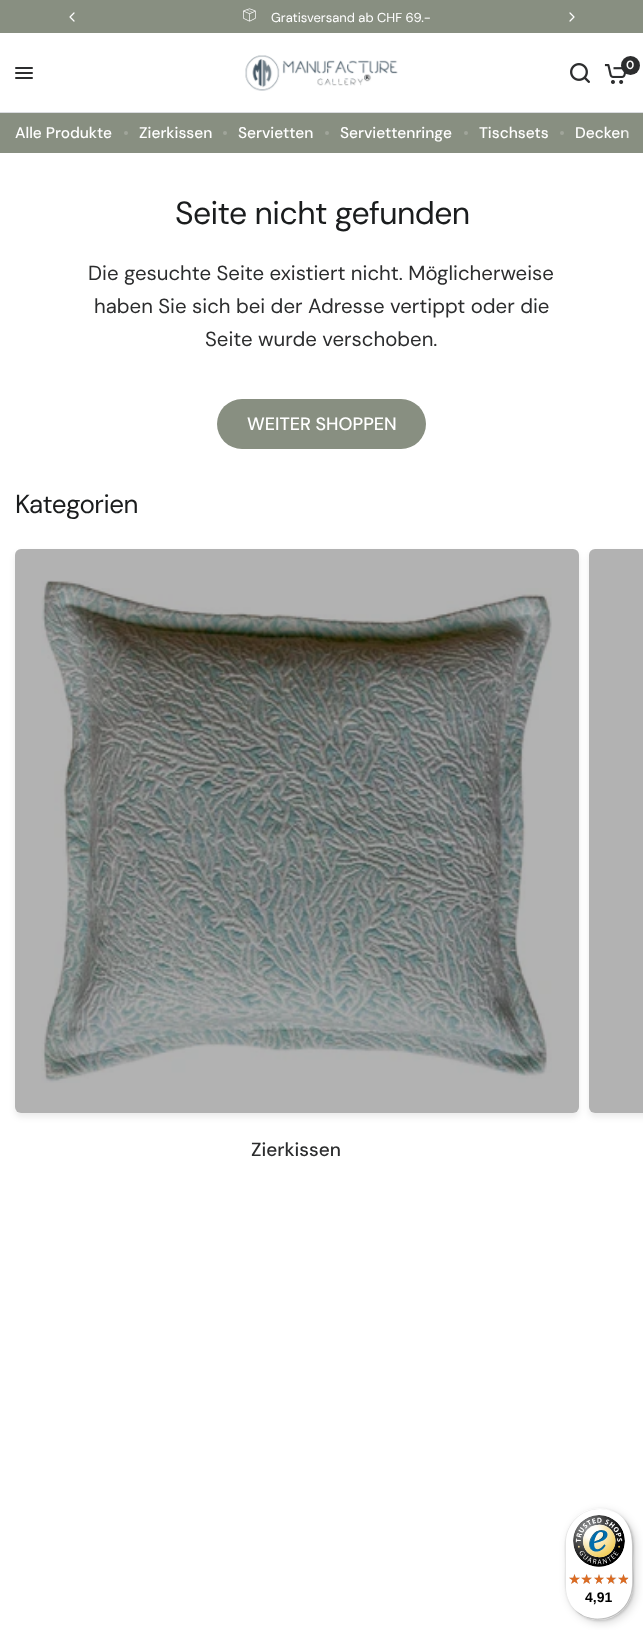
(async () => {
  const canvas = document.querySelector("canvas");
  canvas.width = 643;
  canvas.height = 1630;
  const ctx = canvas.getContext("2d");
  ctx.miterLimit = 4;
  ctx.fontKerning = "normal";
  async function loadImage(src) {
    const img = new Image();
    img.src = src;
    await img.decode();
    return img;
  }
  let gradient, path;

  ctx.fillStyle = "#ffffff";
  ctx.fillRect(0, 0, 643, 1630);
  ctx.fillStyle = "#888f81";
  ctx.fillRect(0, 0, 643, 33);
  path = new Path2D("M74 13L70 17L74 21");
  ctx.strokeStyle = "#ffffff";
  ctx.lineWidth = 1.2;
  ctx.lineCap = "round";
  ctx.lineJoin = "round";
  ctx.stroke(path);
  ctx.drawImage(await loadImage("img/1.png"), 243, 8, 13, 14);
  path = new Path2D("M570 13L574 17L570 21");
  ctx.stroke(path);
  ctx.drawImage(await loadImage("img/2.png"), 245, 55, 153, 36);
  ctx.drawImage(await loadImage("img/3.png"), 570, 63, 20, 20);
  ctx.drawImage(await loadImage("img/4.png"), 604, 64, 22, 20);
  ctx.fillStyle = "#2c2d2e";
  ctx.beginPath();
  ctx.arc(630.5, 65.5, 9.5, 0, Math.PI * 2);
  ctx.fill();
  ctx.beginPath();
  ctx.roundRect(15, 67, 18, 2, 1);
  ctx.fill();
  ctx.beginPath();
  ctx.roundRect(15, 72, 18, 2, 1);
  ctx.fill();
  ctx.beginPath();
  ctx.roundRect(15, 77, 18, 2, 1);
  ctx.fill();
  ctx.fillStyle = "#dadce0";
  ctx.fillRect(0, 112, 643, 1);
  ctx.fillStyle = "#888f81";
  ctx.fillRect(0, 113, 643, 40);
  ctx.fillStyle = "#a0a59a";
  ctx.beginPath();
  ctx.arc(126, 133, 2, 0, Math.PI * 2);
  ctx.fill();
  ctx.beginPath();
  ctx.arc(225, 133, 2, 0, Math.PI * 2);
  ctx.fill();
  ctx.beginPath();
  ctx.arc(327, 133, 2, 0, Math.PI * 2);
  ctx.fill();
  ctx.beginPath();
  ctx.arc(466, 133, 2, 0, Math.PI * 2);
  ctx.fill();
  ctx.beginPath();
  ctx.arc(562, 133, 2, 0, Math.PI * 2);
  ctx.fill();
  ctx.fillStyle = "#888f81";
  ctx.beginPath();
  ctx.roundRect(217, 399, 209, 50, 25);
  ctx.fill();
  ctx.save();
  path = new Path2D("M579 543H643V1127H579ZM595 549H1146C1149.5 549 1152 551.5 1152 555V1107C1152 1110.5 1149.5 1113 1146 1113H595C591.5 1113 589 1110.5 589 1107V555C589 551.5 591.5 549 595 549Z");
  ctx.clip(path, "evenodd");
  ctx.fillStyle = "rgba(0, 0, 0, 0.08)";
  ctx.filter = "blur(3px)";
  ctx.beginPath();
  ctx.roundRect(589, 553, 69, 564, 6);
  ctx.fill();
  ctx.filter = "none";
  ctx.restore();
  ctx.fillStyle = "rgba(0, 0, 0, 0.3)";
  ctx.beginPath();
  ctx.roundRect(589, 549, 54, 564, [6, 0, 0, 6]);
  ctx.fill();
  ctx.save();
  path = new Path2D("M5 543H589V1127H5ZM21 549H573C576.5 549 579 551.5 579 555V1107C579 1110.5 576.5 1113 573 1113H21C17.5 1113 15 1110.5 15 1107V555C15 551.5 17.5 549 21 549Z");
  ctx.clip(path, "evenodd");
  ctx.fillStyle = "rgba(0, 0, 0, 0.08)";
  ctx.filter = "blur(3px)";
  ctx.beginPath();
  ctx.roundRect(15, 553, 564, 564, 6);
  ctx.fill();
  ctx.filter = "none";
  ctx.restore();
  ctx.drawImage(await loadImage("img/5.png"), 41, 580, 511, 503);
  ctx.beginPath();
  ctx.roundRect(15, 549, 564, 564, 6);
  ctx.fill();
  ctx.fillStyle = "rgba(0, 0, 0, 0.15)";
  ctx.filter = "blur(4px)";
  ctx.beginPath();
  ctx.roundRect(568, 1511, 68, 112, 34);
  ctx.fill();
  ctx.filter = "none";
  ctx.filter = "blur(1px)";
  ctx.beginPath();
  ctx.roundRect(566, 1509, 68, 112, 34);
  ctx.fill();
  ctx.filter = "none";
  ctx.fillStyle = "#ffffff";
  ctx.beginPath();
  ctx.roundRect(565, 1508, 68, 112, 34);
  ctx.fill();
  ctx.fillStyle = "#e5e5e5";
  path = new Path2D("M600 1509C608 1509 616 1512 622 1517C605 1502 577 1508 568 1529C563 1539 565 1553 565 1564C565 1579 562 1596 574 1609C569 1603 566 1595 566 1587V1543C566 1524 581 1509 600 1509Z");
  ctx.fill(path);
  ctx.fillStyle = "rgba(0, 0, 0, 0.2)";
  path = new Path2D("M576 1611C593 1626 621 1620 630 1599C635 1589 633 1575 633 1564C633 1549 636 1532 624 1519C634 1532 632 1548 632 1563C632 1574 634 1588 629 1598C621 1619 593 1625 576 1611Z");
  ctx.fill(path);
  ctx.fillStyle = "rgba(50, 50, 50, 0.2)";
  path = new Path2D("M572 1607C579 1615 588 1620 599 1620C618 1620 633 1605 633 1586V1542C633 1531 628 1522 620 1515C627 1522 632 1531 632 1541V1585C632 1604 617 1619 598 1619C588 1619 579 1614 572 1607Z");
  ctx.fill(path);
  ctx.fillStyle = "rgba(255, 255, 255, 0.3)";
  path = new Path2D("M599 1508C617 1508 632 1523 632 1542V1586C632 1604 617 1620 598 1620H599C618 1620 633 1605 633 1586V1542C633 1523 618 1508 599 1508Z");
  ctx.fill(path);
  ctx.drawImage(await loadImage("img/6.png"), 573, 1515, 52, 52);
  ctx.drawImage(await loadImage("img/7.png"), 569, 1574, 11, 10);
  ctx.drawImage(await loadImage("img/8.png"), 582, 1574, 10, 10);
  ctx.drawImage(await loadImage("img/9.png"), 594, 1574, 10, 10);
  ctx.drawImage(await loadImage("img/10.png"), 606, 1574, 11, 10);
  ctx.drawImage(await loadImage("img/10.png"), 618, 1574, 11, 10);
  ctx.drawImage(await loadImage("img/11.png"), 569, 1574, 11, 10);
  ctx.drawImage(await loadImage("img/12.png"), 581, 1574, 11, 10);
  ctx.drawImage(await loadImage("img/13.png"), 594, 1574, 10, 10);
  ctx.drawImage(await loadImage("img/14.png"), 606, 1574, 10, 10);
  ctx.drawImage(await loadImage("img/15.png"), 618, 1574, 10, 10);
  ctx.font = "13px DM Sans";
  ctx.fillStyle = "#ffffff";
  ctx.fillText("Gratisversand ab CHF 69.-", 271, 22);
  ctx.font = "600 12px DM Sans";
  ctx.fillText("0", 626, 69);
  ctx.font = "500 15.5px DM Sans";
  for (const [text, x, y] of [
    ["Alle Produkte", 15, 138],
    ["Zierkissen", 139, 138],
    ["Servietten", 238, 138],
    ["Serviettenringe", 340, 138],
    ["Tischsets", 479, 138],
    ["Decken", 575, 138],
  ]) {
    ctx.fillText(text, x, y);
  }
  gradient = ctx.createLinearGradient(623, 134, 643, 134);
  gradient.addColorStop(0, "rgba(136, 143, 129, 0)");
  gradient.addColorStop(1, "#888f81");
  ctx.fillStyle = gradient;
  ctx.fillRect(623, 130, 6, 8);
  ctx.letterSpacing = "-0.6px";
  ctx.font = "32px DM Sans";
  ctx.fillStyle = "#1a1c1d";
  ctx.fillText("Seite nicht gefunden", 175, 224);
  ctx.letterSpacing = "0px";
  ctx.font = "20.4px DM Sans";
  ctx.fillStyle = "#2c2d2e";
  for (const [text, x, y] of [
    ["Die gesuchte Seite existiert nicht. Möglicherweise", 88, 280],
    ["haben Sie sich bei der Adresse vertippt oder die", 94, 313],
    ["Seite wurde verschoben.", 205, 346],
  ]) {
    ctx.fillText(text, x, y);
  }
  ctx.font = "500 18px DM Sans";
  ctx.fillStyle = "#ffffff";
  ctx.fillText("WEITER SHOPPEN", 247, 430);
  ctx.letterSpacing = "-0.5px";
  ctx.font = "26px DM Sans";
  ctx.fillStyle = "#1a1c1d";
  ctx.fillText("Kategorien", 15, 513);
  ctx.letterSpacing = "0px";
  ctx.font = "500 19px DM Sans";
  ctx.fillStyle = "#2c2d2e";
  ctx.fillText("Zierkissen", 251, 1156);
  ctx.font = "bold 14px Liberation Sans";
  ctx.fillStyle = "#000000";
  ctx.fillText("4,91", 585, 1602);
})();
